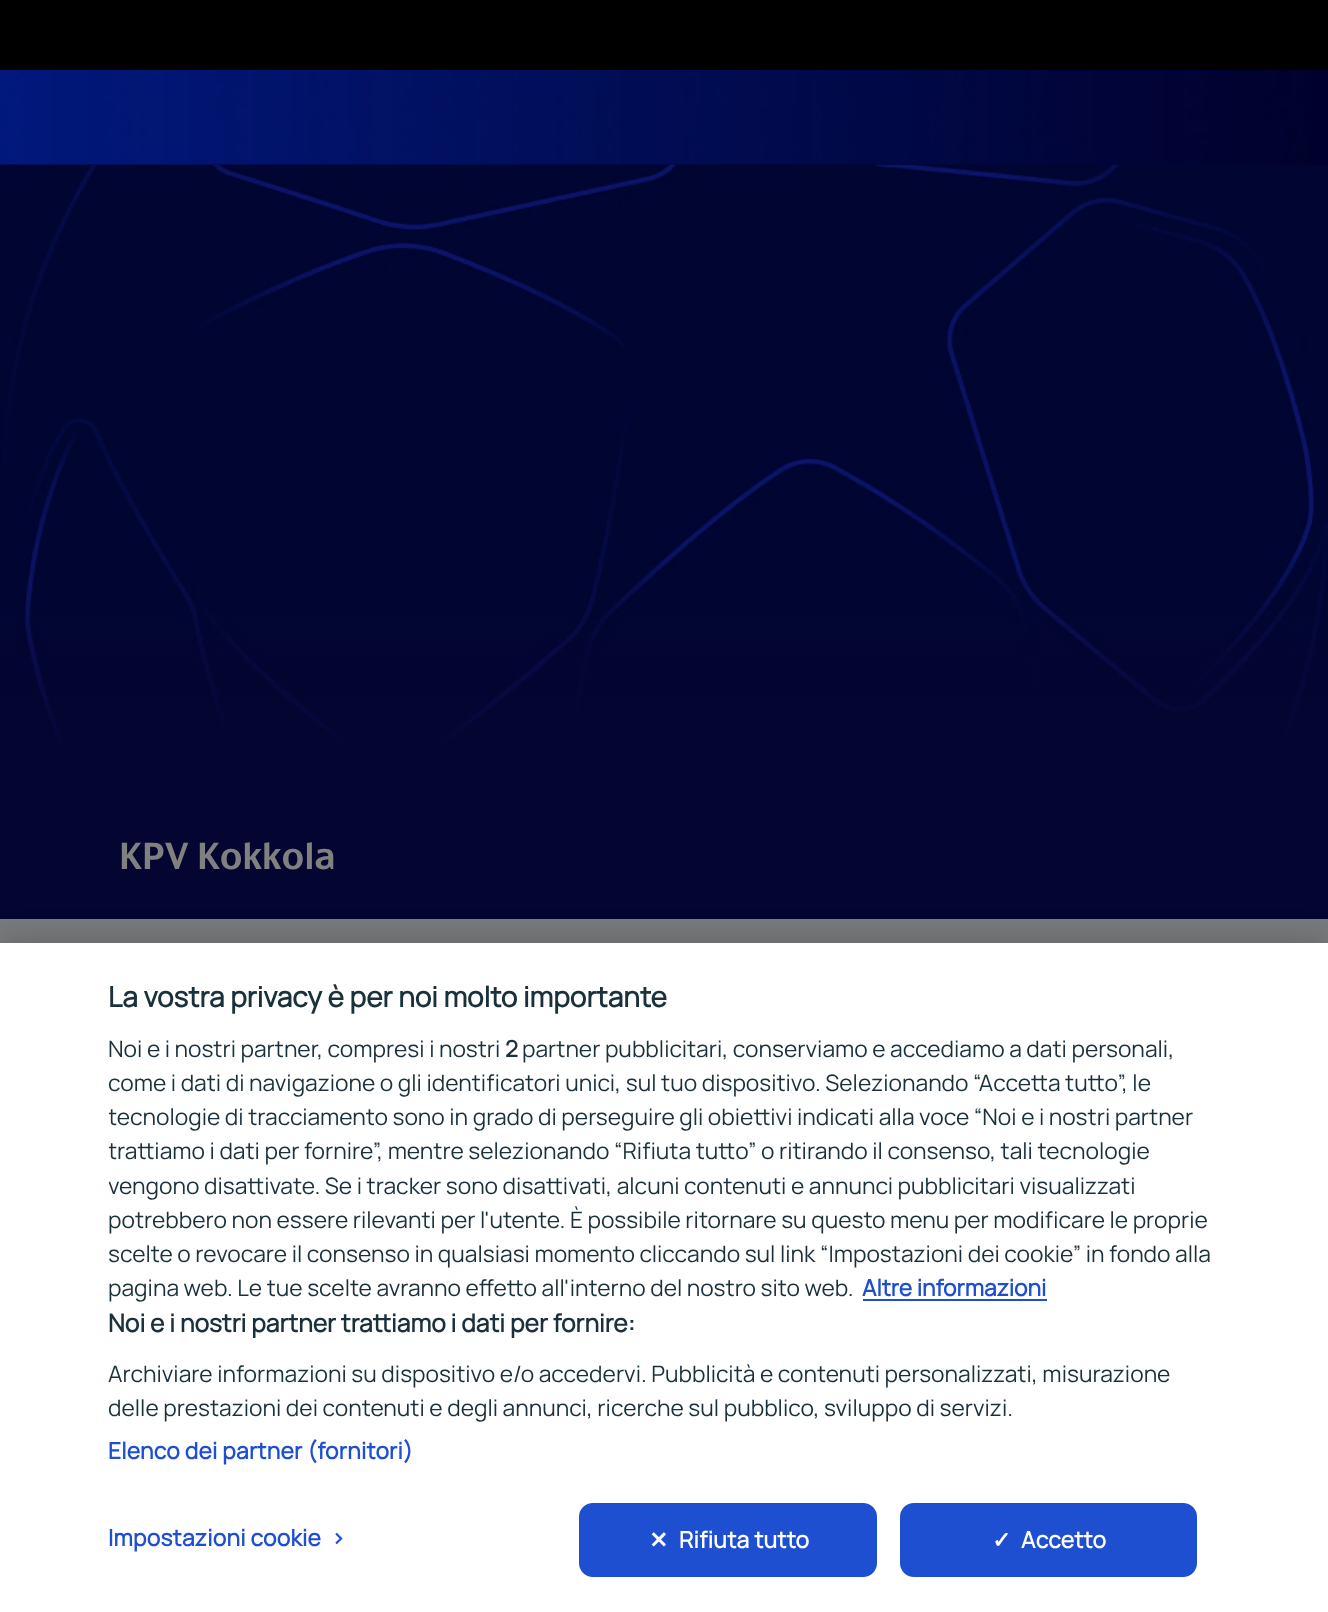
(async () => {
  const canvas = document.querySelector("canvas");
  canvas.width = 1328;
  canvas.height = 1612;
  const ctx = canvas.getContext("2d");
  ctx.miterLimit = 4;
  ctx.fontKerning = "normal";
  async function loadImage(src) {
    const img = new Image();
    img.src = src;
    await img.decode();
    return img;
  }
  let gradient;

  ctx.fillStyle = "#ffffff";
  ctx.fillRect(0, 0, 1328, 1612);
  ctx.drawImage(await loadImage("img/1.png"), 0, 164, 1328, 1);
  ctx.fillStyle = "#000000";
  ctx.fillRect(0, 0, 1328, 70);
  ctx.drawImage(await loadImage("img/3.png"), 0, 164, 1328, 590);
  ctx.drawImage(await loadImage("img/2.png"), 0, 70, 1328, 95);
  ctx.fillStyle = "#050531";
  ctx.fillRect(0, 821, 1328, 98);
  gradient = ctx.createLinearGradient(664, 821, 664, 165);
  gradient.addColorStop(0.1, "#050531");
  gradient.addColorStop(0.4, "rgba(5, 5, 49, 0)");
  ctx.fillStyle = gradient;
  ctx.fillRect(0, 567, 1328, 254);
  ctx.fillStyle = "#797a7c";
  ctx.fillRect(0, 919, 1328, 24);
  ctx.fillStyle = "rgba(0, 0, 0, 0.2)";
  ctx.filter = "blur(16px)";
  ctx.beginPath();
  ctx.rect(0, 943, 1328, 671);
  ctx.fill();
  ctx.filter = "none";
  ctx.fillStyle = "#ffffff";
  ctx.fillRect(0, 943, 1328, 669);
  ctx.fillStyle = "#1e4fd0";
  ctx.fillRect(863, 1299, 184, 2);
  ctx.beginPath();
  ctx.roundRect(580, 1504, 296, 72, 13);
  ctx.fill();
  ctx.strokeStyle = "#1e4fd0";
  ctx.lineWidth = 2;
  ctx.stroke();
  ctx.beginPath();
  ctx.roundRect(901, 1504, 295, 72, 13);
  ctx.fill();
  ctx.stroke();
  ctx.font = "bold 42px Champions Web";
  ctx.fillStyle = "#808080";
  ctx.fillText("KPV Kokkola", 119, 869);
  ctx.font = "bold 28px Manrope";
  ctx.fillStyle = "#1a313c";
  ctx.fillText("La vostra privacy è per noi molto importante", 108, 1007);
  ctx.font = "22.75px Manrope";
  ctx.fillText("Noi e i nostri partner, compresi i nostri", 108, 1057);
  ctx.font = "bold 22.75px Manrope";
  ctx.fillText("2", 505, 1057);
  ctx.font = "22.75px Manrope";
  ctx.fillText("partner pubblicitari, conserviamo e accediamo a dati personali,", 522, 1057);
  ctx.save();
  ctx.beginPath();
  ctx.rect(109, 978, 1111, 508);
  ctx.clip();
  for (const [text, x, y] of [
    ["come i dati di navigazione o gli identificatori unici, sul tuo dispositivo. Selezionando “Accetta tutto”, le", 108, 1091],
    ["tecnologie di tracciamento sono in grado di perseguire gli obiettivi indicati alla voce “Noi e i nostri partner", 108, 1125],
    ["trattiamo i dati per fornire”, mentre selezionando “Rifiuta tutto” o ritirando il consenso, tali tecnologie", 108, 1159],
    ["vengono disattivate. Se i tracker sono disattivati, alcuni contenuti e annunci pubblicitari visualizzati", 108, 1194],
  ]) {
    ctx.fillText(text, x, y);
  }
  ctx.restore();
  for (const [text, x, y] of [
    ["potrebbero non essere rilevanti per l'utente. È possibile ritornare su questo menu per modificare le proprie", 108, 1228],
    ["scelte o revocare il consenso in qualsiasi momento cliccando sul link “Impostazioni dei cookie” in fondo alla", 108, 1262],
    ["pagina web. Le tue scelte avranno effetto all'interno del nostro sito web.", 108, 1296],
  ]) {
    ctx.fillText(text, x, y);
  }
  ctx.font = "bold 22.75px Manrope";
  ctx.fillStyle = "#1e4fd0";
  ctx.fillText("Altre informazioni", 862, 1296);
  ctx.font = "bold 24.6px Manrope";
  ctx.fillStyle = "#1a313c";
  ctx.fillText("Noi e i nostri partner trattiamo i dati per fornire:", 108, 1332);
  ctx.font = "22.75px Manrope";
  ctx.fillText("Archiviare informazioni su dispositivo e/o accedervi. Pubblicità e contenuti personalizzati, misurazione", 108, 1382);
  ctx.save();
  ctx.beginPath();
  ctx.rect(109, 978, 1111, 508);
  ctx.clip();
  ctx.fillText("delle prestazioni dei contenuti e degli annunci, ricerche sul pubblico, sviluppo di servizi.", 108, 1416);
  ctx.restore();
  ctx.letterSpacing = "0.25px";
  ctx.font = "bold 22.75px Manrope";
  ctx.fillStyle = "#1e4fd0";
  for (const [text, x, y] of [
    ["Elenco dei partner (fornitori)", 108, 1459],
    ["Impostazioni cookie", 108, 1546],
    [">", 331, 1546],
  ]) {
    ctx.fillText(text, x, y);
  }
  ctx.font = "bold 22.75px DejaVu Sans";
  ctx.fillStyle = "#ffffff";
  ctx.fillText("✕", 649, 1548);
  ctx.font = "bold 22.75px Manrope";
  ctx.fillText("Rifiuta tutto", 679, 1548);
  ctx.font = "bold 22.75px DejaVu Sans";
  ctx.fillText("✓", 992, 1548);
  ctx.font = "bold 22.75px Manrope";
  ctx.fillText("Accetto", 1021, 1548);
})();
